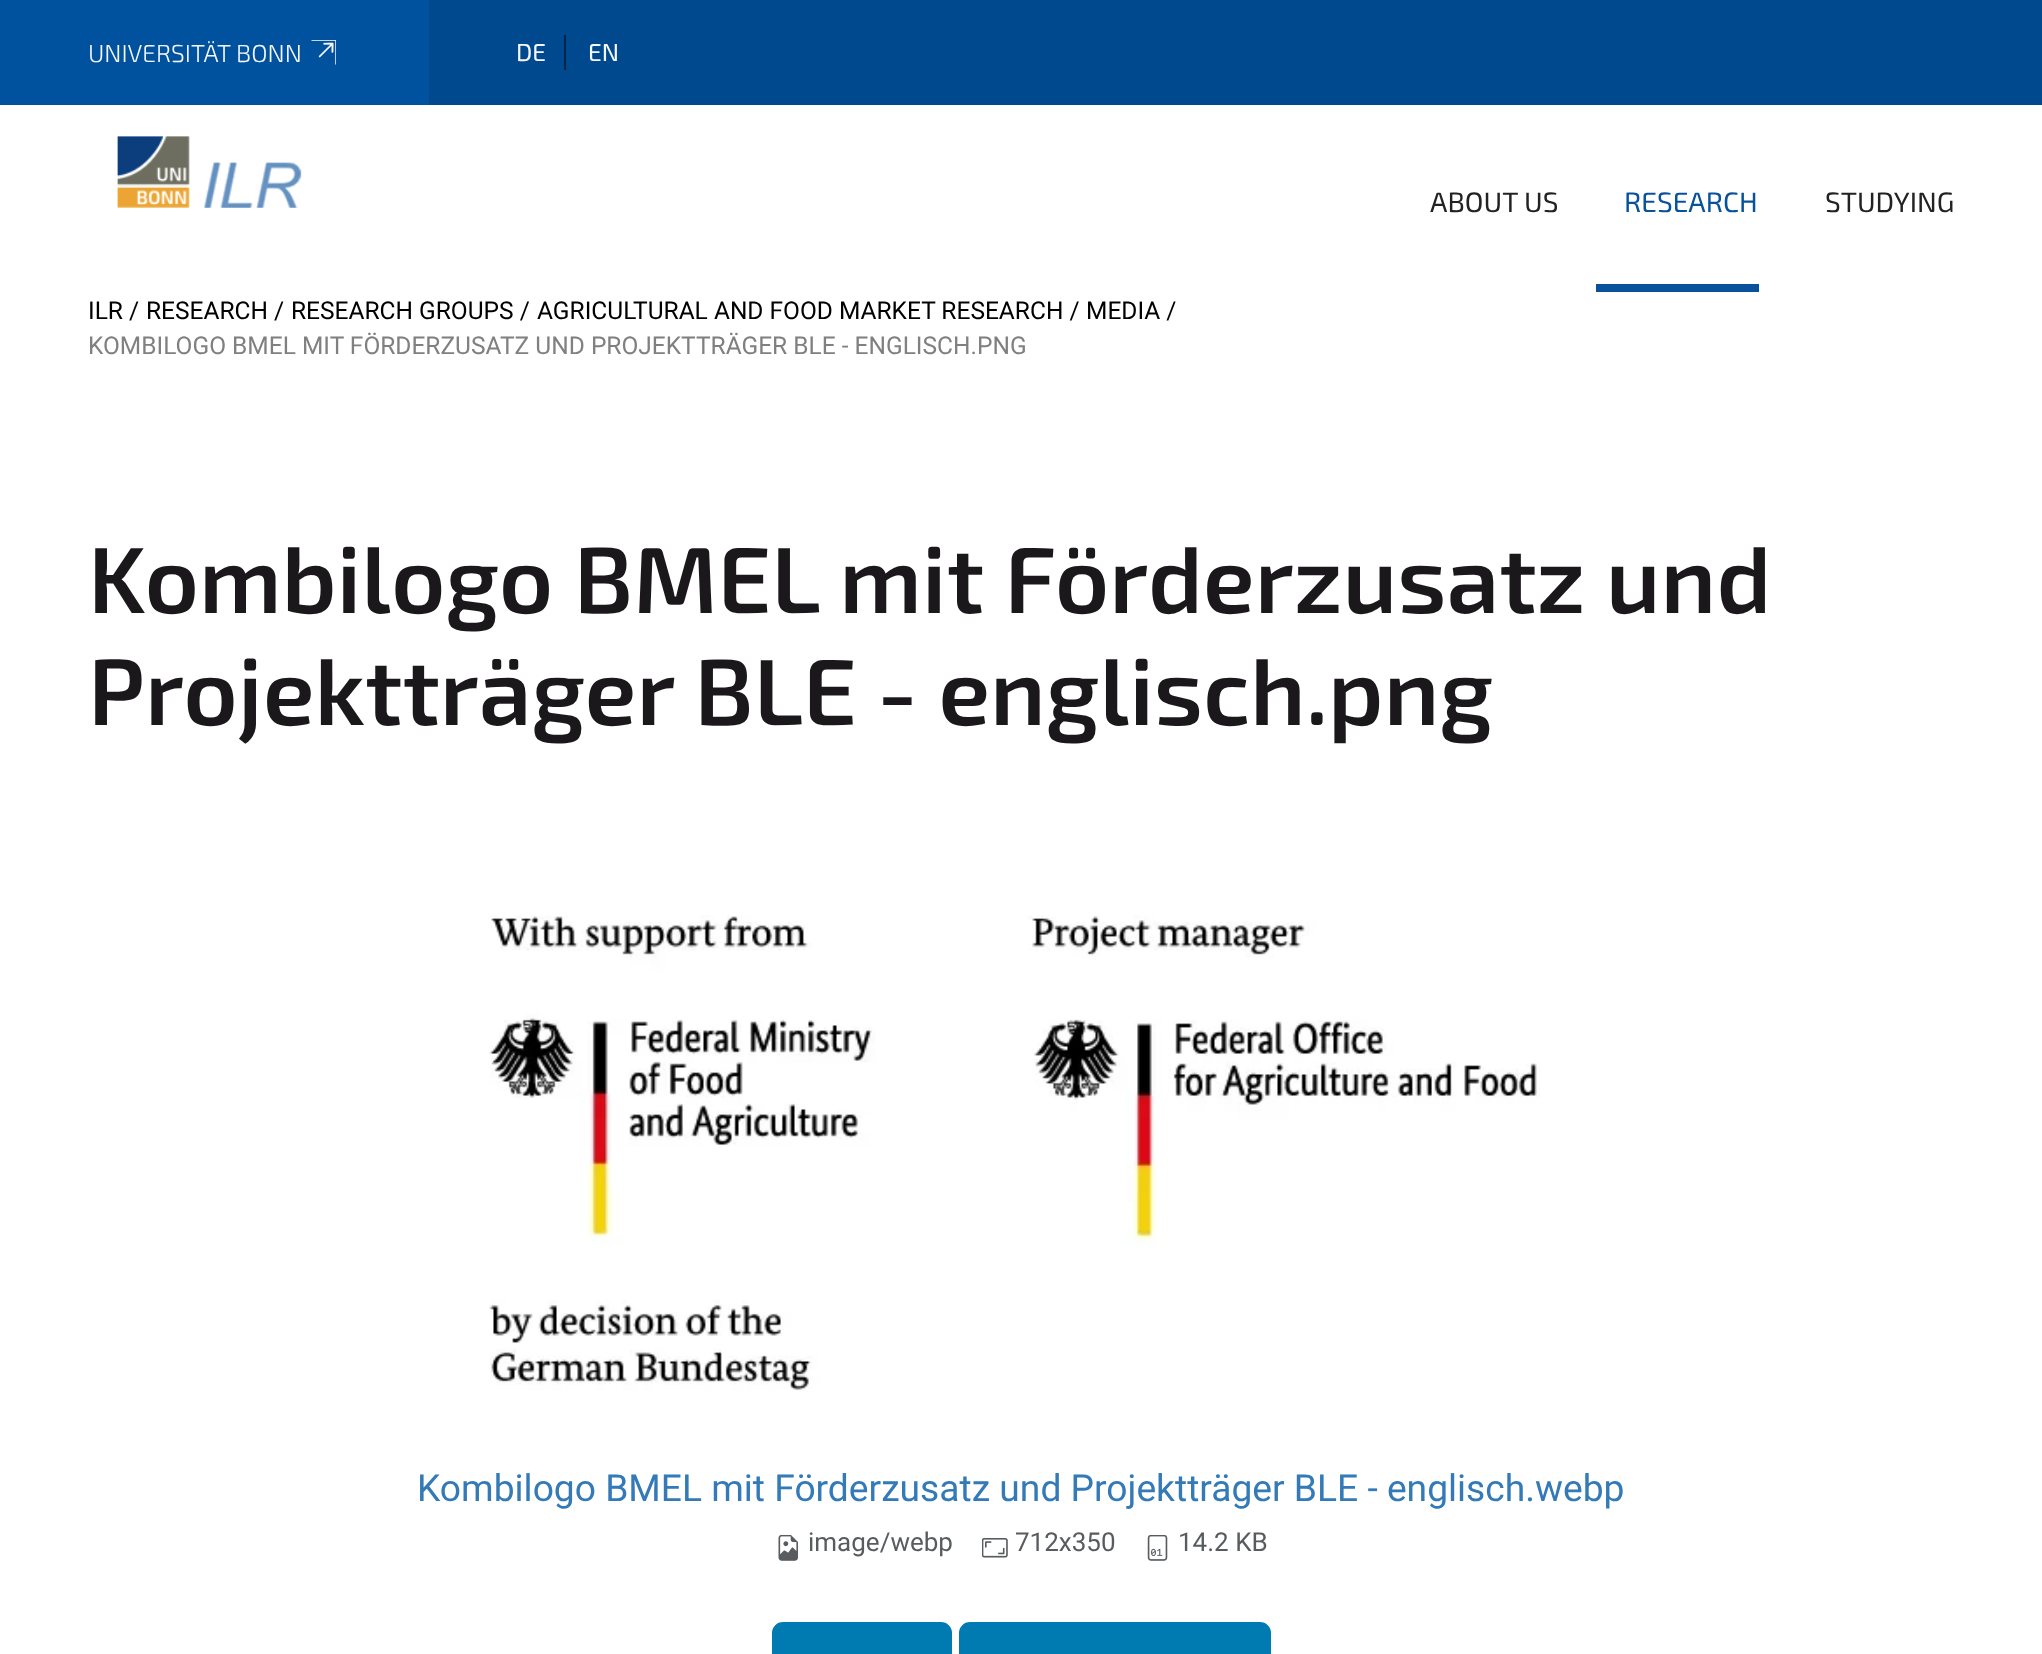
(async () => {
  const canvas = document.querySelector("canvas");
  canvas.width = 2042;
  canvas.height = 1654;
  const ctx = canvas.getContext("2d");
  ctx.miterLimit = 4;
  ctx.fontKerning = "normal";
  async function loadImage(src) {
    const img = new Image();
    img.src = src;
    await img.decode();
    return img;
  }

  ctx.fillStyle = "#ffffff";
  ctx.fillRect(0, 0, 2042, 1654);
  ctx.fillStyle = "#00498f";
  ctx.fillRect(429, 0, 1613, 105);
  ctx.fillStyle = "#00529f";
  ctx.fillRect(0, 0, 429, 105);
  ctx.drawImage(await loadImage("img/1.png"), 311, 40, 25, 25);
  ctx.fillStyle = "#012548";
  ctx.fillRect(564, 35, 2, 35);
  ctx.drawImage(await loadImage("img/2.png"), 117, 136, 185, 72);
  ctx.fillStyle = "#07529a";
  ctx.fillRect(1596, 284, 163, 8);
  ctx.drawImage(await loadImage("img/3.png"), 489, 915, 1051, 476);
  ctx.drawImage(await loadImage("img/4.png"), 778, 1535, 20, 26);
  ctx.drawImage(await loadImage("img/5.png"), 982, 1538, 26, 20);
  ctx.drawImage(await loadImage("img/6.png"), 1147, 1535, 21, 26);
  ctx.fillStyle = "#007bb1";
  ctx.beginPath();
  ctx.roundRect(773, 1623, 178, 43, 10);
  ctx.fill();
  ctx.strokeStyle = "#007bb1";
  ctx.lineWidth = 2;
  ctx.stroke();
  ctx.beginPath();
  ctx.roundRect(960, 1623, 310, 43, 10);
  ctx.fill();
  ctx.stroke();
  ctx.font = "300 24.5px 'Exo 2'";
  ctx.fillStyle = "#f6f7f9";
  ctx.fillText("UNIVERSITÄT BONN", 88, 62);
  ctx.font = "24.5px 'Exo 2'";
  ctx.fillText("DE", 516, 61);
  ctx.fillText("EN", 588, 61);
  ctx.font = "28px 'Exo 2'";
  ctx.fillStyle = "#222222";
  ctx.fillText("ABOUT US", 1430, 212);
  ctx.fillStyle = "#07529a";
  ctx.fillText("RESEARCH", 1624, 212);
  ctx.fillStyle = "#222222";
  ctx.fillText("STUDYING", 1825, 212);
  ctx.font = "24.5px Roboto";
  ctx.fillStyle = "#000000";
  for (const [text, x, y] of [
    ["ILR /", 88, 319],
    ["RESEARCH /", 146, 319],
    ["RESEARCH GROUPS /", 291, 319],
    ["AGRICULTURAL AND FOOD MARKET RESEARCH /", 537, 319],
    ["MEDIA /", 1086, 319],
  ]) {
    ctx.fillText(text, x, y);
  }
  ctx.fillStyle = "#808080";
  ctx.fillText("KOMBILOGO BMEL MIT FÖRDERZUSATZ UND PROJEKTTRÄGER BLE - ENGLISCH.PNG", 88, 354);
  ctx.font = "600 94px 'Exo 2'";
  ctx.fillStyle = "#1a181b";
  ctx.fillText("Kombilogo BMEL mit Förderzusatz und", 88, 613);
  ctx.fillText("Projektträger BLE - englisch.png", 88, 725);
  ctx.font = "37.2px Roboto";
  ctx.fillStyle = "#337ab7";
  ctx.fillText("Kombilogo BMEL mit Förderzusatz und Projektträger BLE - englisch.webp", 417, 1501);
  ctx.font = "26px Roboto";
  ctx.fillStyle = "#595c5f";
  for (const [text, x, y] of [
    ["image/webp", 808, 1551],
    ["712x350", 1015, 1551],
    ["14.2 KB", 1178, 1551],
  ]) {
    ctx.fillText(text, x, y);
  }
})();
